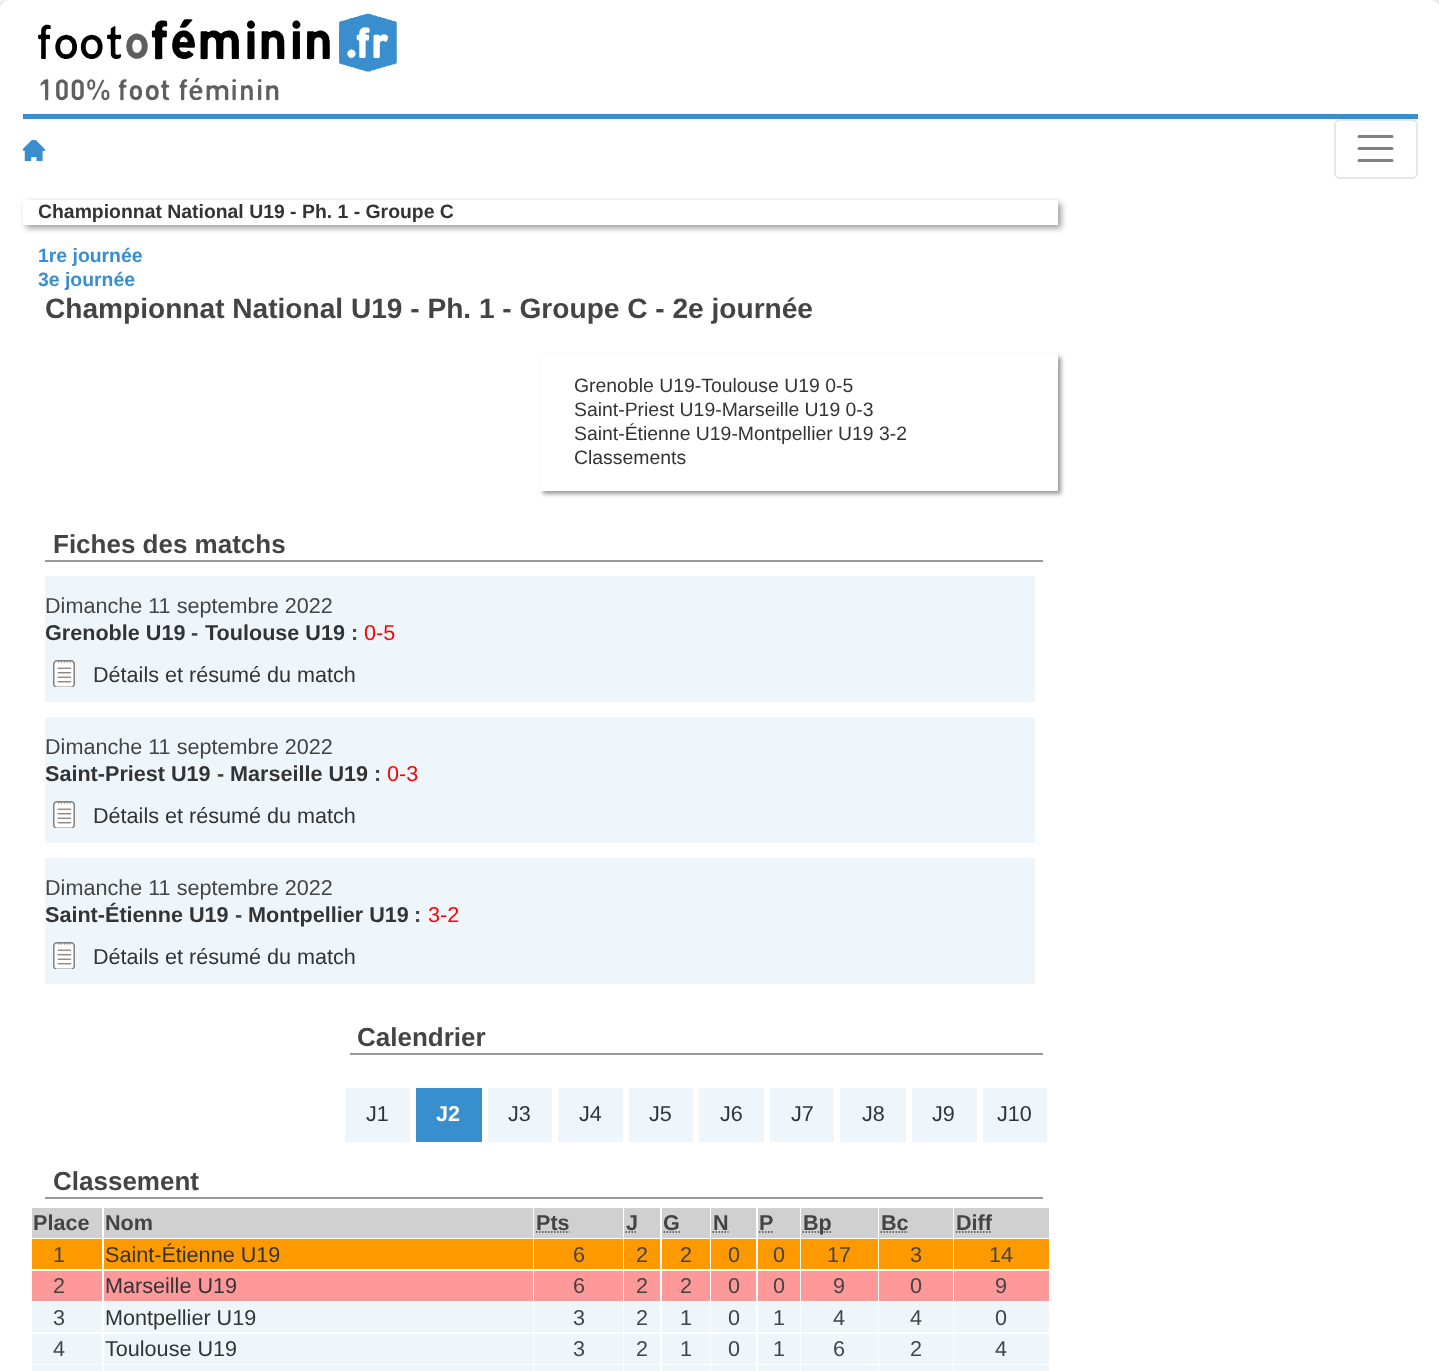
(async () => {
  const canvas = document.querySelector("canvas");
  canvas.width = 1439;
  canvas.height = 1371;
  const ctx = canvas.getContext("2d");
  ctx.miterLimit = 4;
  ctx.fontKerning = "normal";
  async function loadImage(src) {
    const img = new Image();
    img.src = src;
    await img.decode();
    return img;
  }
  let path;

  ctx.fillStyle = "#ffffff";
  ctx.fillRect(0, 0, 1439, 1371);
  ctx.fillStyle = "#999999";
  ctx.filter = "blur(4.5px)";
  ctx.beginPath();
  ctx.roundRect(0, 2, 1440, 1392, 9);
  ctx.fill();
  ctx.filter = "none";
  ctx.fillStyle = "#ffffff";
  ctx.beginPath();
  ctx.roundRect(0, 0, 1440, 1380, 9);
  ctx.fill();
  ctx.drawImage(await loadImage("img/1.png"), 38, 14, 359, 87);
  ctx.fillStyle = "#398ece";
  ctx.fillRect(23, 114, 1395, 5);
  ctx.drawImage(await loadImage("img/2.png"), 23, 140, 22, 21);
  ctx.beginPath();
  ctx.roundRect(1335, 120, 82, 58, 5);
  ctx.strokeStyle = "#e6e6e6";
  ctx.lineWidth = 2;
  ctx.stroke();
  path = new Path2D("M1359 136.5H1392M1359 148.5H1392M1359 160.5H1392");
  ctx.strokeStyle = "#808080";
  ctx.lineWidth = 3;
  ctx.lineCap = "round";
  ctx.stroke(path);
  ctx.save();
  path = new Path2D("M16 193H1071V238H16ZM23 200H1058V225H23Z");
  ctx.clip(path, "evenodd");
  ctx.fillStyle = "#999999";
  ctx.filter = "blur(3px)";
  ctx.beginPath();
  ctx.rect(26, 203, 1035, 25);
  ctx.fill();
  ctx.filter = "none";
  ctx.restore();
  ctx.save();
  path = new Path2D("M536 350H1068V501H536ZM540 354H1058V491H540Z");
  ctx.clip(path, "evenodd");
  ctx.fillStyle = "#999999";
  ctx.filter = "blur(2px)";
  ctx.beginPath();
  ctx.rect(543, 357, 518, 137);
  ctx.fill();
  ctx.filter = "none";
  ctx.restore();
  ctx.fillStyle = "#999999";
  ctx.fillRect(45, 560, 998, 2);
  ctx.fillStyle = "#eff6fb";
  ctx.fillRect(45, 576, 990, 126);
  ctx.drawImage(await loadImage("img/3.png"), 53, 660, 22, 27);
  ctx.fillRect(45, 717, 990, 126);
  ctx.drawImage(await loadImage("img/3.png"), 53, 801, 22, 27);
  ctx.fillRect(45, 858, 990, 126);
  ctx.drawImage(await loadImage("img/3.png"), 53, 942, 22, 27);
  for (const [x, y, w, h, color] of [
    [350, 1053, 693, 2, "#999999"],
    [345, 1088, 65, 54, "#eff6fb"],
    [416, 1088, 66, 54, "#398ece"],
    [488, 1088, 64, 54, "#eff6fb"],
    [558, 1088, 65, 54, "#eff6fb"],
    [629, 1088, 64, 54, "#eff6fb"],
    [699, 1088, 65, 54, "#eff6fb"],
    [770, 1088, 64, 54, "#eff6fb"],
    [840, 1088, 66, 54, "#eff6fb"],
    [912, 1088, 65, 54, "#eff6fb"],
    [983, 1088, 64, 54, "#eff6fb"],
    [45, 1197, 998, 2, "#999999"],
    [32, 1208, 70, 30, "#d0d0d0"],
    [104, 1208, 429, 30, "#d0d0d0"],
    [534, 1208, 89, 30, "#d0d0d0"],
  ]) {
    ctx.fillStyle = color;
    ctx.fillRect(x, y, w, h);
  }
  path = new Path2D("M536 1232H569.5");
  ctx.strokeStyle = "#444444";
  ctx.lineWidth = 1.5;
  ctx.lineCap = "butt";
  ctx.setLineDash([1.5, 1.5]);
  ctx.stroke(path);
  ctx.fillRect(624, 1208, 36, 30);
  path = new Path2D("M625.5 1232H637.5");
  ctx.stroke(path);
  ctx.fillRect(662, 1208, 48, 30);
  path = new Path2D("M663.5 1232H680");
  ctx.stroke(path);
  ctx.fillRect(711, 1208, 45, 30);
  path = new Path2D("M712.5 1232H728.5");
  ctx.stroke(path);
  ctx.fillRect(758, 1208, 42, 30);
  path = new Path2D("M759 1232H773.5");
  ctx.stroke(path);
  ctx.fillRect(801, 1208, 77, 30);
  path = new Path2D("M802.5 1232H831.5");
  ctx.stroke(path);
  ctx.fillRect(879, 1208, 74, 30);
  path = new Path2D("M880.5 1232H908");
  ctx.stroke(path);
  ctx.fillRect(954, 1208, 95, 30);
  path = new Path2D("M956 1232H992");
  ctx.stroke(path);
  for (const [x, y, w, h, color] of [
    [32, 1239, 70, 30, "#ff9900"],
    [104, 1239, 429, 30, "#ff9900"],
    [534, 1239, 89, 30, "#ff9900"],
    [624, 1239, 36, 30, "#ff9900"],
    [662, 1239, 48, 30, "#ff9900"],
    [711, 1239, 45, 30, "#ff9900"],
    [758, 1239, 42, 30, "#ff9900"],
    [801, 1239, 77, 30, "#ff9900"],
    [879, 1239, 74, 30, "#ff9900"],
    [954, 1239, 95, 30, "#ff9900"],
    [32, 1271, 70, 30, "#ff9999"],
    [104, 1271, 429, 30, "#ff9999"],
    [534, 1271, 89, 30, "#ff9999"],
    [624, 1271, 36, 30, "#ff9999"],
    [662, 1271, 48, 30, "#ff9999"],
    [711, 1271, 45, 30, "#ff9999"],
    [758, 1271, 42, 30, "#ff9999"],
    [801, 1271, 77, 30, "#ff9999"],
    [879, 1271, 74, 30, "#ff9999"],
    [954, 1271, 95, 30, "#ff9999"],
    [32, 1302, 70, 30, "#eff6fb"],
    [104, 1302, 429, 30, "#eff6fb"],
    [534, 1302, 89, 30, "#eff6fb"],
    [624, 1302, 36, 30, "#eff6fb"],
    [662, 1302, 48, 30, "#eff6fb"],
    [711, 1302, 45, 30, "#eff6fb"],
    [758, 1302, 42, 30, "#eff6fb"],
    [801, 1302, 77, 30, "#eff6fb"],
    [879, 1302, 74, 30, "#eff6fb"],
    [954, 1302, 95, 30, "#eff6fb"],
    [32, 1334, 70, 30, "#eff6fb"],
    [104, 1334, 429, 30, "#eff6fb"],
    [534, 1334, 89, 30, "#eff6fb"],
    [624, 1334, 36, 30, "#eff6fb"],
    [662, 1334, 48, 30, "#eff6fb"],
    [711, 1334, 45, 30, "#eff6fb"],
    [758, 1334, 42, 30, "#eff6fb"],
    [801, 1334, 77, 30, "#eff6fb"],
    [879, 1334, 74, 30, "#eff6fb"],
    [954, 1334, 95, 30, "#eff6fb"],
    [32, 1365, 70, 6, "#eff6fb"],
    [104, 1365, 429, 6, "#eff6fb"],
    [534, 1365, 89, 6, "#eff6fb"],
    [624, 1365, 36, 6, "#eff6fb"],
    [662, 1365, 48, 6, "#eff6fb"],
    [711, 1365, 45, 6, "#eff6fb"],
    [758, 1365, 42, 6, "#eff6fb"],
    [801, 1365, 77, 6, "#eff6fb"],
    [879, 1365, 74, 6, "#eff6fb"],
    [954, 1365, 95, 6, "#eff6fb"],
  ]) {
    ctx.fillStyle = color;
    ctx.fillRect(x, y, w, h);
  }
  ctx.font = "bold 19.4px Liberation Sans";
  ctx.fillStyle = "#333333";
  ctx.fillText("Championnat National U19 - Ph. 1 - Groupe C", 38, 218);
  ctx.fillStyle = "#398ece";
  ctx.fillText("1re journée", 38, 262);
  ctx.fillText("3e journée", 38, 286);
  ctx.font = "bold 28.1px Liberation Sans";
  ctx.fillStyle = "#444444";
  ctx.fillText("Championnat National U19 - Ph. 1 - Groupe C - 2e journée", 45, 318);
  ctx.font = "19.4px Liberation Sans";
  ctx.fillStyle = "#333333";
  for (const [text, x, y] of [
    ["Grenoble U19-Toulouse U19 0-5", 574, 392],
    ["Saint-Priest U19-Marseille U19 0-3", 574, 416],
    ["Saint-Étienne U19-Montpellier U19 3-2", 574, 440],
    ["Classements", 574, 464],
  ]) {
    ctx.fillText(text, x, y);
  }
  ctx.font = "bold 26px Liberation Sans";
  ctx.fillStyle = "#444444";
  ctx.fillText("Fiches des matchs", 53, 553);
  ctx.font = "21.6px Liberation Sans";
  ctx.fillText("Dimanche 11 septembre 2022", 45, 613);
  ctx.font = "bold 21.6px Liberation Sans";
  ctx.fillStyle = "#333333";
  ctx.fillText("Grenoble U19", 45, 640);
  ctx.fillStyle = "#444444";
  ctx.fillText("-", 191, 640);
  ctx.fillStyle = "#333333";
  ctx.fillText("Toulouse U19", 205, 640);
  ctx.fillStyle = "#444444";
  ctx.fillText(":", 351, 640);
  ctx.font = "21.6px Liberation Sans";
  ctx.fillStyle = "#ff0000";
  ctx.fillText("0-5", 364, 640);
  ctx.fillStyle = "#333333";
  ctx.fillText("Détails et résumé du match", 93, 682);
  ctx.fillStyle = "#444444";
  ctx.fillText("Dimanche 11 septembre 2022", 45, 754);
  ctx.font = "bold 21.6px Liberation Sans";
  ctx.fillStyle = "#333333";
  ctx.fillText("Saint-Priest U19", 45, 781);
  ctx.fillStyle = "#444444";
  ctx.fillText("-", 217, 781);
  ctx.fillStyle = "#333333";
  ctx.fillText("Marseille U19", 230, 781);
  ctx.fillStyle = "#444444";
  ctx.fillText(":", 374, 781);
  ctx.font = "21.6px Liberation Sans";
  ctx.fillStyle = "#ff0000";
  ctx.fillText("0-3", 387, 781);
  ctx.fillStyle = "#333333";
  ctx.fillText("Détails et résumé du match", 93, 823);
  ctx.fillStyle = "#444444";
  ctx.fillText("Dimanche 11 septembre 2022", 45, 895);
  ctx.font = "bold 21.6px Liberation Sans";
  ctx.fillStyle = "#333333";
  ctx.fillText("Saint-Étienne U19", 45, 922);
  ctx.fillStyle = "#444444";
  ctx.fillText("-", 235, 922);
  ctx.fillStyle = "#333333";
  ctx.fillText("Montpellier U19", 248, 922);
  ctx.fillStyle = "#444444";
  ctx.fillText(":", 414, 922);
  ctx.font = "21.6px Liberation Sans";
  ctx.fillStyle = "#ff0000";
  ctx.fillText("3-2", 428, 922);
  ctx.fillStyle = "#333333";
  ctx.fillText("Détails et résumé du match", 93, 964);
  ctx.font = "bold 26px Liberation Sans";
  ctx.fillStyle = "#444444";
  ctx.fillText("Calendrier", 357, 1046);
  ctx.font = "21.6px Liberation Sans";
  ctx.fillStyle = "#333333";
  ctx.fillText("J1", 366, 1121);
  ctx.font = "bold 21.6px Liberation Sans";
  ctx.fillStyle = "#ffffff";
  ctx.fillText("J2", 436, 1121);
  ctx.font = "21.6px Liberation Sans";
  ctx.fillStyle = "#333333";
  for (const [text, x, y] of [
    ["J3", 508, 1121],
    ["J4", 579, 1121],
    ["J5", 649, 1121],
    ["J6", 720, 1121],
    ["J7", 791, 1121],
    ["J8", 862, 1121],
    ["J9", 932, 1121],
    ["J10", 997, 1121],
  ]) {
    ctx.fillText(text, x, y);
  }
  ctx.font = "bold 26px Liberation Sans";
  ctx.fillStyle = "#444444";
  ctx.fillText("Classement", 53, 1190);
  ctx.font = "bold 21.6px Liberation Sans";
  for (const [text, x, y] of [
    ["Place", 33, 1230],
    ["Nom", 105, 1230],
    ["Pts", 536, 1230],
    ["J", 626, 1230],
    ["G", 663, 1230],
    ["N", 713, 1230],
    ["P", 759, 1230],
    ["Bp", 803, 1230],
    ["Bc", 881, 1230],
    ["Diff", 956, 1230],
  ]) {
    ctx.fillText(text, x, y);
  }
  ctx.font = "21.6px Liberation Sans";
  ctx.fillText("1", 53, 1262);
  ctx.fillStyle = "#333333";
  ctx.fillText("Saint-Étienne U19", 105, 1262);
  ctx.fillStyle = "#444444";
  for (const [text, x, y] of [
    ["6", 573, 1262],
    ["2", 636, 1262],
    ["2", 680, 1262],
    ["0", 728, 1262],
    ["0", 773, 1262],
    ["17", 827, 1262],
    ["3", 910, 1262],
    ["14", 989, 1262],
    ["2", 53, 1293],
  ]) {
    ctx.fillText(text, x, y);
  }
  ctx.fillStyle = "#333333";
  ctx.fillText("Marseille U19", 105, 1293);
  ctx.fillStyle = "#444444";
  for (const [text, x, y] of [
    ["6", 573, 1293],
    ["2", 636, 1293],
    ["2", 680, 1293],
    ["0", 728, 1293],
    ["0", 773, 1293],
    ["9", 833, 1293],
    ["0", 910, 1293],
    ["9", 995, 1293],
    ["3", 53, 1325],
  ]) {
    ctx.fillText(text, x, y);
  }
  ctx.fillStyle = "#333333";
  ctx.fillText("Montpellier U19", 105, 1325);
  ctx.fillStyle = "#444444";
  for (const [text, x, y] of [
    ["3", 573, 1325],
    ["2", 636, 1325],
    ["1", 680, 1325],
    ["0", 728, 1325],
    ["1", 773, 1325],
    ["4", 833, 1325],
    ["4", 910, 1325],
    ["0", 995, 1325],
    ["4", 53, 1356],
  ]) {
    ctx.fillText(text, x, y);
  }
  ctx.fillStyle = "#333333";
  ctx.fillText("Toulouse U19", 105, 1356);
  ctx.fillStyle = "#444444";
  for (const [text, x, y] of [
    ["3", 573, 1356],
    ["2", 636, 1356],
    ["1", 680, 1356],
    ["0", 728, 1356],
    ["1", 773, 1356],
    ["6", 833, 1356],
    ["2", 910, 1356],
    ["4", 995, 1356],
  ]) {
    ctx.fillText(text, x, y);
  }
})();
